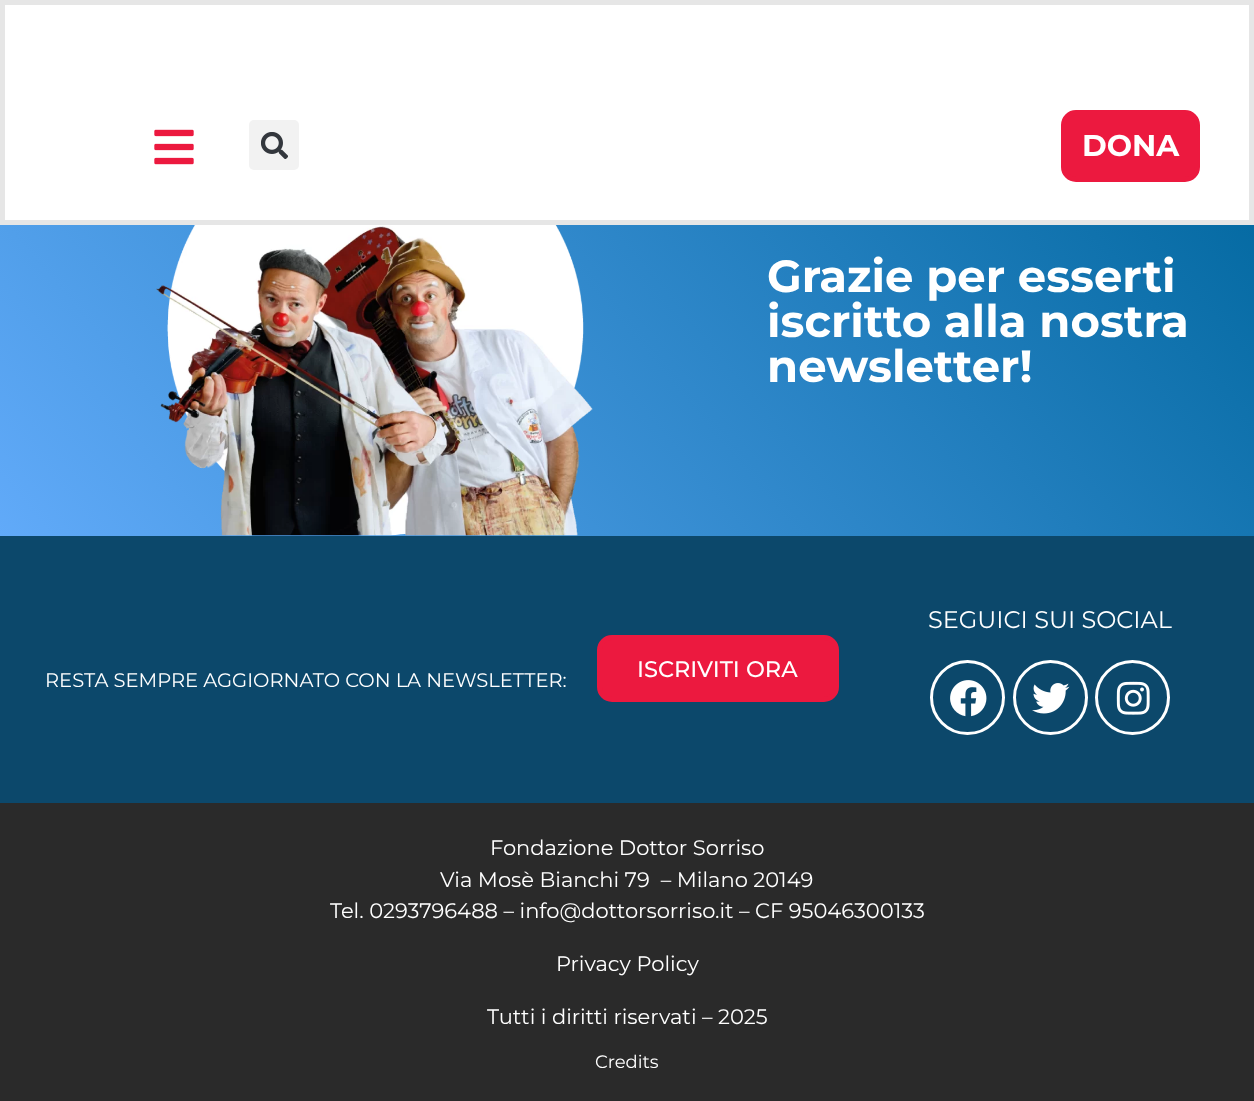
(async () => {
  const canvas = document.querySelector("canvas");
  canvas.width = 1254;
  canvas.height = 1101;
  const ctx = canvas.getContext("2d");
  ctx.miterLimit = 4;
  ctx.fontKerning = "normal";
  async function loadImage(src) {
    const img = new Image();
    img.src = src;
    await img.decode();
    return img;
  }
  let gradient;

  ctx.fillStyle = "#ffffff";
  ctx.fillRect(0, 0, 1254, 1101);
  ctx.strokeStyle = "#e6e6e6";
  ctx.lineWidth = 5;
  ctx.strokeRect(2.5, 2.5, 1249, 220);
  ctx.drawImage(await loadImage("img/1.png"), 154, 129, 40, 36);
  ctx.fillStyle = "#f2f2f2";
  ctx.beginPath();
  ctx.roundRect(249, 120, 50, 50, 5);
  ctx.fill();
  ctx.drawImage(await loadImage("img/2.png"), 261, 132, 27, 27);
  ctx.fillStyle = "#ec193f";
  ctx.beginPath();
  ctx.roundRect(1063.5, 112.5, 134, 67, 12.5);
  ctx.fill();
  ctx.strokeStyle = "#ec193f";
  ctx.stroke();
  gradient = ctx.createLinearGradient(1100, -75, 154, 719);
  gradient.addColorStop(0, "#00679e");
  gradient.addColorStop(1, "#61aaf9");
  ctx.fillStyle = gradient;
  ctx.fillRect(0, 225, 1254, 311);
  ctx.drawImage(await loadImage("img/3.png"), 156, 225, 437, 311);
  ctx.fillStyle = "#0c486b";
  ctx.fillRect(0, 536, 1254, 267);
  ctx.beginPath();
  ctx.arc(967.5, 697.5, 36, 0, Math.PI * 2);
  ctx.strokeStyle = "#ffffff";
  ctx.lineWidth = 3;
  ctx.stroke();
  ctx.drawImage(await loadImage("img/4.png"), 950, 680, 37, 37);
  ctx.beginPath();
  ctx.arc(1050.5, 697.5, 36, 0, Math.PI * 2);
  ctx.stroke();
  ctx.drawImage(await loadImage("img/5.png"), 1032, 683, 38, 31);
  ctx.beginPath();
  ctx.arc(1132.5, 697.5, 36, 0, Math.PI * 2);
  ctx.stroke();
  ctx.drawImage(await loadImage("img/6.png"), 1116, 681, 34, 34);
  ctx.fillStyle = "#ec193f";
  ctx.beginPath();
  ctx.roundRect(599.5, 637.5, 237, 62, 12.5);
  ctx.fill();
  ctx.strokeStyle = "#ec193f";
  ctx.lineWidth = 5;
  ctx.stroke();
  ctx.fillStyle = "#2a2a2a";
  ctx.fillRect(0, 803, 1254, 298);
  ctx.font = "bold 30px Montserrat";
  ctx.fillStyle = "#ffffff";
  ctx.fillText("DONA", 1082, 156);
  ctx.font = "bold 45px Montserrat";
  for (const [text, x, y] of [
    ["Grazie per esserti", 767, 292],
    ["iscritto alla nostra", 767, 337],
    ["newsletter!", 767, 382],
  ]) {
    ctx.fillText(text, x, y);
  }
  ctx.font = "24px Montserrat";
  ctx.fillText("SEGUICI SUI SOCIAL", 928, 628);
  ctx.font = "500 22.5px Montserrat";
  ctx.fillText("ISCRIVITI ORA", 637, 677);
  ctx.font = "19.5px Montserrat";
  ctx.fillText("RESTA SEMPRE AGGIORNATO CON LA NEWSLETTER:", 45, 687);
  ctx.font = "21px Montserrat";
  for (const [text, x, y] of [
    ["Fondazione Dottor Sorriso", 490, 855],
    ["Via Mosè Bianchi 79  – Milano 20149", 440, 887],
    ["Tel. 0293796488 – info@dottorsorriso.it – CF 95046300133", 330, 918],
    ["Privacy Policy", 556, 971],
    ["Tutti i diritti riservati – 2025", 487, 1024],
  ]) {
    ctx.fillText(text, x, y);
  }
  ctx.font = "18px Montserrat";
  ctx.fillText("Credits", 595, 1068);
})();
